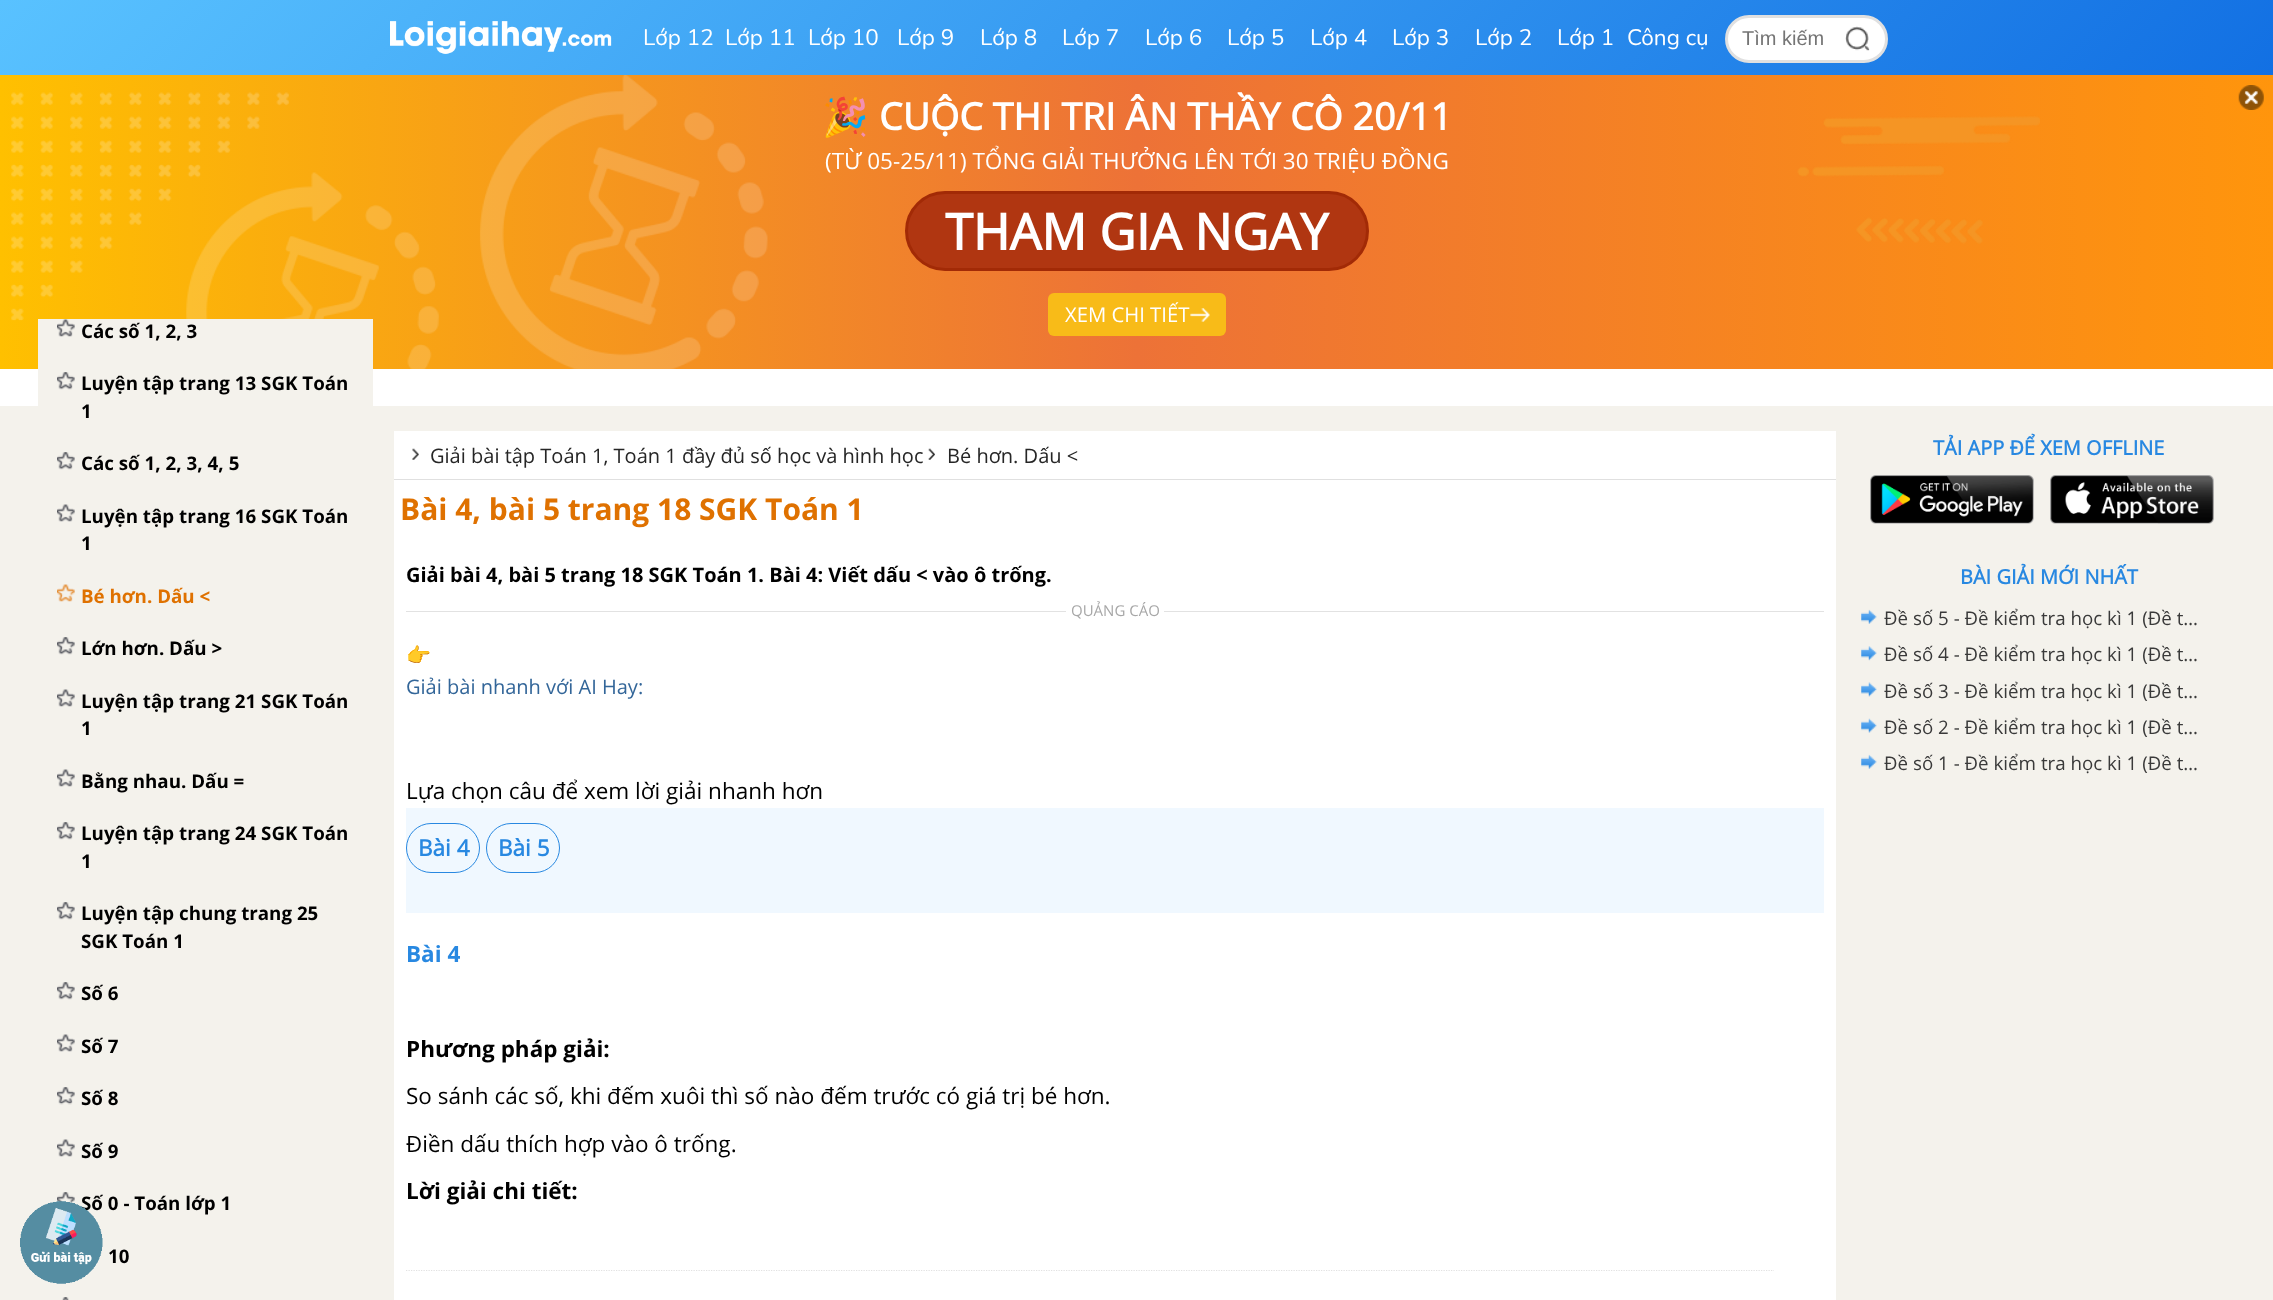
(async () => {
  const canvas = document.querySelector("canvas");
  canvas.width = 2273;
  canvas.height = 1300;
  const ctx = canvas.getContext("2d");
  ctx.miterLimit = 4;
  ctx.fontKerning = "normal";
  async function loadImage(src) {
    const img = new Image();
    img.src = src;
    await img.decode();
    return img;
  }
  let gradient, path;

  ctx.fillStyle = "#ffffff";
  ctx.fillRect(0, 0, 2273, 1300);
  gradient = ctx.createLinearGradient(1724, 625, 550, -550);
  gradient.addColorStop(0, "#1270e3");
  gradient.addColorStop(1, "#59c2ff");
  ctx.fillStyle = gradient;
  ctx.fillRect(0, 0, 2273, 75);
  ctx.drawImage(await loadImage("img/1.png"), 390, 21, 222, 33);
  ctx.fillStyle = "#ffffff";
  ctx.beginPath();
  ctx.roundRect(1726.5, 16.5, 160, 45, 22.5);
  ctx.fill();
  ctx.strokeStyle = "#e0e0e0";
  ctx.lineWidth = 3;
  ctx.stroke();
  ctx.drawImage(await loadImage("img/2.png"), 1845, 26, 25, 25);
  gradient = ctx.createLinearGradient(0, 222, 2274, 222);
  gradient.addColorStop(0, "#ffc000");
  gradient.addColorStop(0.5, "#ed7237");
  gradient.addColorStop(1, "#ff950c");
  ctx.fillStyle = gradient;
  ctx.fillRect(0, 75, 2273, 294);
  ctx.drawImage(await loadImage("img/3.png"), 11, 75, 2029, 294);
  ctx.fillStyle = "#b03611";
  ctx.beginPath();
  ctx.roundRect(906.5, 192.5, 461, 77, 38.5);
  ctx.fill();
  ctx.strokeStyle = "#a22a06";
  ctx.stroke();
  ctx.fillStyle = "#f8bb18";
  ctx.beginPath();
  ctx.roundRect(1048, 293, 178, 43, 6);
  ctx.fill();
  ctx.drawImage(await loadImage("img/4.png"), 1190, 308, 20, 14);
  ctx.drawImage(await loadImage("img/5.png"), 2238, 85, 26, 25);
  ctx.fillStyle = "#f4f2ec";
  ctx.fillRect(0, 406, 2273, 894);
  ctx.fillRect(38, 319, 335, 87);
  ctx.drawImage(await loadImage("img/7.png"), 57, 319, 18, 18);
  ctx.drawImage(await loadImage("img/8.png"), 57, 372, 18, 18);
  ctx.drawImage(await loadImage("img/8.png"), 57, 452, 18, 18);
  ctx.drawImage(await loadImage("img/7.png"), 57, 504, 18, 18);
  ctx.drawImage(await loadImage("img/9.png"), 57, 584, 18, 18);
  ctx.drawImage(await loadImage("img/8.png"), 57, 637, 18, 18);
  ctx.drawImage(await loadImage("img/7.png"), 57, 689, 18, 18);
  ctx.drawImage(await loadImage("img/7.png"), 57, 769, 18, 18);
  ctx.drawImage(await loadImage("img/8.png"), 57, 822, 18, 18);
  ctx.drawImage(await loadImage("img/8.png"), 57, 902, 18, 18);
  ctx.drawImage(await loadImage("img/8.png"), 57, 982, 18, 18);
  ctx.drawImage(await loadImage("img/7.png"), 57, 1034, 18, 18);
  ctx.drawImage(await loadImage("img/10.png"), 57, 1087, 18, 18);
  ctx.drawImage(await loadImage("img/7.png"), 57, 1139, 18, 18);
  ctx.drawImage(await loadImage("img/11.png"), 57, 1192, 18, 11);
  ctx.drawImage(await loadImage("img/12.png"), 62, 1297, 7, 3);
  ctx.fillStyle = "#ffffff";
  ctx.fillRect(394, 431, 1442, 869);
  ctx.fillStyle = "#e0e0e0";
  ctx.fillRect(394, 479, 1442, 1);
  ctx.drawImage(await loadImage("img/13.png"), 412, 448, 7, 12);
  ctx.drawImage(await loadImage("img/14.png"), 928, 448, 7, 12);
  for (const [x, y, w, h, color] of [
    [406, 611, 1418, 1, "#e2e2e2"],
    [1066, 611, 98, 1, "#ffffff"],
    [406, 808, 1418, 105, "#f0f8ff"],
  ]) {
    ctx.fillStyle = color;
    ctx.fillRect(x, y, w, h);
  }
  ctx.beginPath();
  ctx.roundRect(406.5, 823.5, 73, 49, 24.5);
  ctx.strokeStyle = "#2888e1";
  ctx.lineWidth = 1;
  ctx.stroke();
  ctx.beginPath();
  ctx.roundRect(486.5, 823.5, 73, 49, 24.5);
  ctx.stroke();
  path = new Path2D("M406 1270.5H1774");
  ctx.strokeStyle = "#e1e1e1";
  ctx.lineWidth = 1.2;
  ctx.setLineDash([1.25, 1.25]);
  ctx.stroke(path);
  ctx.drawImage(await loadImage("img/15.png"), 1870, 475, 164, 49);
  ctx.drawImage(await loadImage("img/16.png"), 2050, 475, 164, 49);
  ctx.drawImage(await loadImage("img/17.png"), 1861, 609, 16, 15);
  ctx.drawImage(await loadImage("img/18.png"), 1861, 646, 16, 15);
  ctx.drawImage(await loadImage("img/19.png"), 1861, 682, 16, 15);
  ctx.drawImage(await loadImage("img/20.png"), 1861, 718, 16, 15);
  ctx.drawImage(await loadImage("img/17.png"), 1861, 754, 16, 15);
  ctx.font = "22.5px Nunito";
  ctx.fillStyle = "#ffffff";
  for (const [text, x, y] of [
    ["Lớp 12", 643, 45],
    ["Lớp 11", 725, 45],
    ["Lớp 10", 808, 45],
    ["Lớp 9", 897, 45],
    ["Lớp 8", 980, 45],
    ["Lớp 7", 1062, 45],
    ["Lớp 6", 1145, 45],
    ["Lớp 5", 1227, 45],
    ["Lớp 4", 1310, 45],
    ["Lớp 3", 1392, 45],
    ["Lớp 2", 1475, 45],
    ["Lớp 1", 1557, 45],
    ["Công cụ", 1627, 45],
  ]) {
    ctx.fillText(text, x, y);
  }
  ctx.font = "20px Liberation Sans";
  ctx.fillStyle = "#757575";
  ctx.fillText("Tìm kiếm", 1742, 45);
  ctx.font = "bold 37.5px Noto Color Emoji";
  ctx.fillStyle = "#ffffff";
  ctx.fillText("🎉", 822, 130);
  ctx.font = "bold 37.5px 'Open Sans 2'";
  ctx.fillText("CUỘC THI TRI ÂN THẦY CÔ 20/11", 879, 130);
  ctx.font = "22.5px Open Sans";
  ctx.fillText("(TỪ 05-25/11) TỔNG GIẢI THƯỞNG LÊN TỚI 30 TRIỆU ĐỒNG", 825, 169);
  ctx.font = "bold 50px 'Open Sans 2'";
  ctx.fillText("THAM GIA NGAY", 945, 250);
  ctx.font = "20.25px Open Sans";
  ctx.fillText("XEM CHI TIẾT", 1065, 322);
  ctx.font = "bold 18.75px Open Sans";
  ctx.fillStyle = "#000000";
  for (const [text, x, y] of [
    ["Các số 1, 2, 3", 81, 338],
    ["Luyện tập trang 13 SGK Toán", 81, 390],
    ["1", 81, 418],
    ["Các số 1, 2, 3, 4, 5", 81, 470],
    ["Luyện tập trang 16 SGK Toán", 81, 523],
    ["1", 81, 550],
  ]) {
    ctx.fillText(text, x, y);
  }
  ctx.fillStyle = "#df7100";
  ctx.fillText("Bé hơn. Dấu <", 81, 603);
  ctx.fillStyle = "#000000";
  for (const [text, x, y] of [
    ["Lớn hơn. Dấu >", 81, 655],
    ["Luyện tập trang 21 SGK Toán", 81, 708],
    ["1", 81, 735],
    ["Bằng nhau. Dấu =", 81, 788],
    ["Luyện tập trang 24 SGK Toán", 81, 840],
    ["1", 81, 868],
    ["Luyện tập chung trang 25", 81, 920],
    ["SGK Toán 1", 81, 948],
    ["Số 6", 81, 1000],
    ["Số 7", 81, 1053],
    ["Số 8", 81, 1105],
    ["Số 9", 81, 1158],
    ["Số 0 - Toán lớp 1", 81, 1210],
  ]) {
    ctx.fillText(text, x, y);
  }
  ctx.drawImage(await loadImage("img/6.png"), 20, 1201, 83, 83);
  ctx.fillText("10", 108, 1263);
  ctx.font = "20px Open Sans";
  ctx.fillStyle = "#262626";
  ctx.fillText("Giải bài tập Toán 1, Toán 1 đầy đủ số học và hình học", 430, 463);
  ctx.fillText("Bé hơn. Dấu <", 947, 463);
  ctx.font = "bold 30px Open Sans";
  ctx.fillStyle = "#df7100";
  ctx.fillText("Bài 4, bài 5 trang 18 SGK Toán 1", 400, 520);
  ctx.font = "bold 20px Open Sans";
  ctx.fillStyle = "#000000";
  ctx.fillText("Giải bài 4, bài 5 trang 18 SGK Toán 1. Bài 4: Viết dấu < vào ô trống.", 406, 582);
  ctx.font = "15px Open Sans";
  ctx.fillStyle = "#a7a7a7";
  ctx.fillText("QUẢNG CÁO", 1071, 616);
  ctx.font = "20px Noto Color Emoji";
  ctx.fillStyle = "#336699";
  ctx.fillText("👉", 406, 662);
  ctx.font = "20px Open Sans";
  ctx.fillText("Giải bài nhanh với AI Hay:", 406, 694);
  ctx.font = "22.5px Open Sans";
  ctx.fillStyle = "#000000";
  ctx.fillText("Lựa chọn câu để xem lời giải nhanh hơn", 406, 799);
  ctx.font = "bold 22.5px 'Open Sans 2'";
  ctx.fillStyle = "#2888e1";
  ctx.fillText("Bài 4", 418, 856);
  ctx.fillText("Bài 5", 498, 856);
  ctx.font = "bold 22.5px Open Sans";
  ctx.fillText("Bài 4", 406, 962);
  ctx.fillStyle = "#000000";
  ctx.fillText("Phương pháp giải:", 406, 1057);
  ctx.font = "22.5px Open Sans";
  ctx.fillText("So sánh các số, khi đếm xuôi thì số nào đếm trước có giá trị bé hơn.", 406, 1104);
  ctx.fillText("Điền dấu thích hợp vào ô trống.", 406, 1152);
  ctx.font = "bold 22.5px Open Sans";
  ctx.fillText("Lời giải chi tiết:", 406, 1199);
  ctx.font = "bold 20px 'Open Sans 2'";
  ctx.fillStyle = "#2888e1";
  ctx.fillText("TẢI APP ĐỂ XEM OFFLINE", 1933, 455);
  ctx.fillText("BÀI GIẢI MỚI NHẤT", 1960, 584);
  ctx.font = "18.75px Open Sans";
  ctx.fillStyle = "#3a3a3a";
  for (const [text, x, y] of [
    ["Đề số 5 - Đề kiểm tra học kì 1 (Đề t…", 1884, 625],
    ["Đề số 4 - Đề kiểm tra học kì 1 (Đề t…", 1884, 661],
    ["Đề số 3 - Đề kiểm tra học kì 1 (Đề t…", 1884, 698],
    ["Đề số 2 - Đề kiểm tra học kì 1 (Đề t…", 1884, 734],
    ["Đề số 1 - Đề kiểm tra học kì 1 (Đề t…", 1884, 770],
  ]) {
    ctx.fillText(text, x, y);
  }
})();
